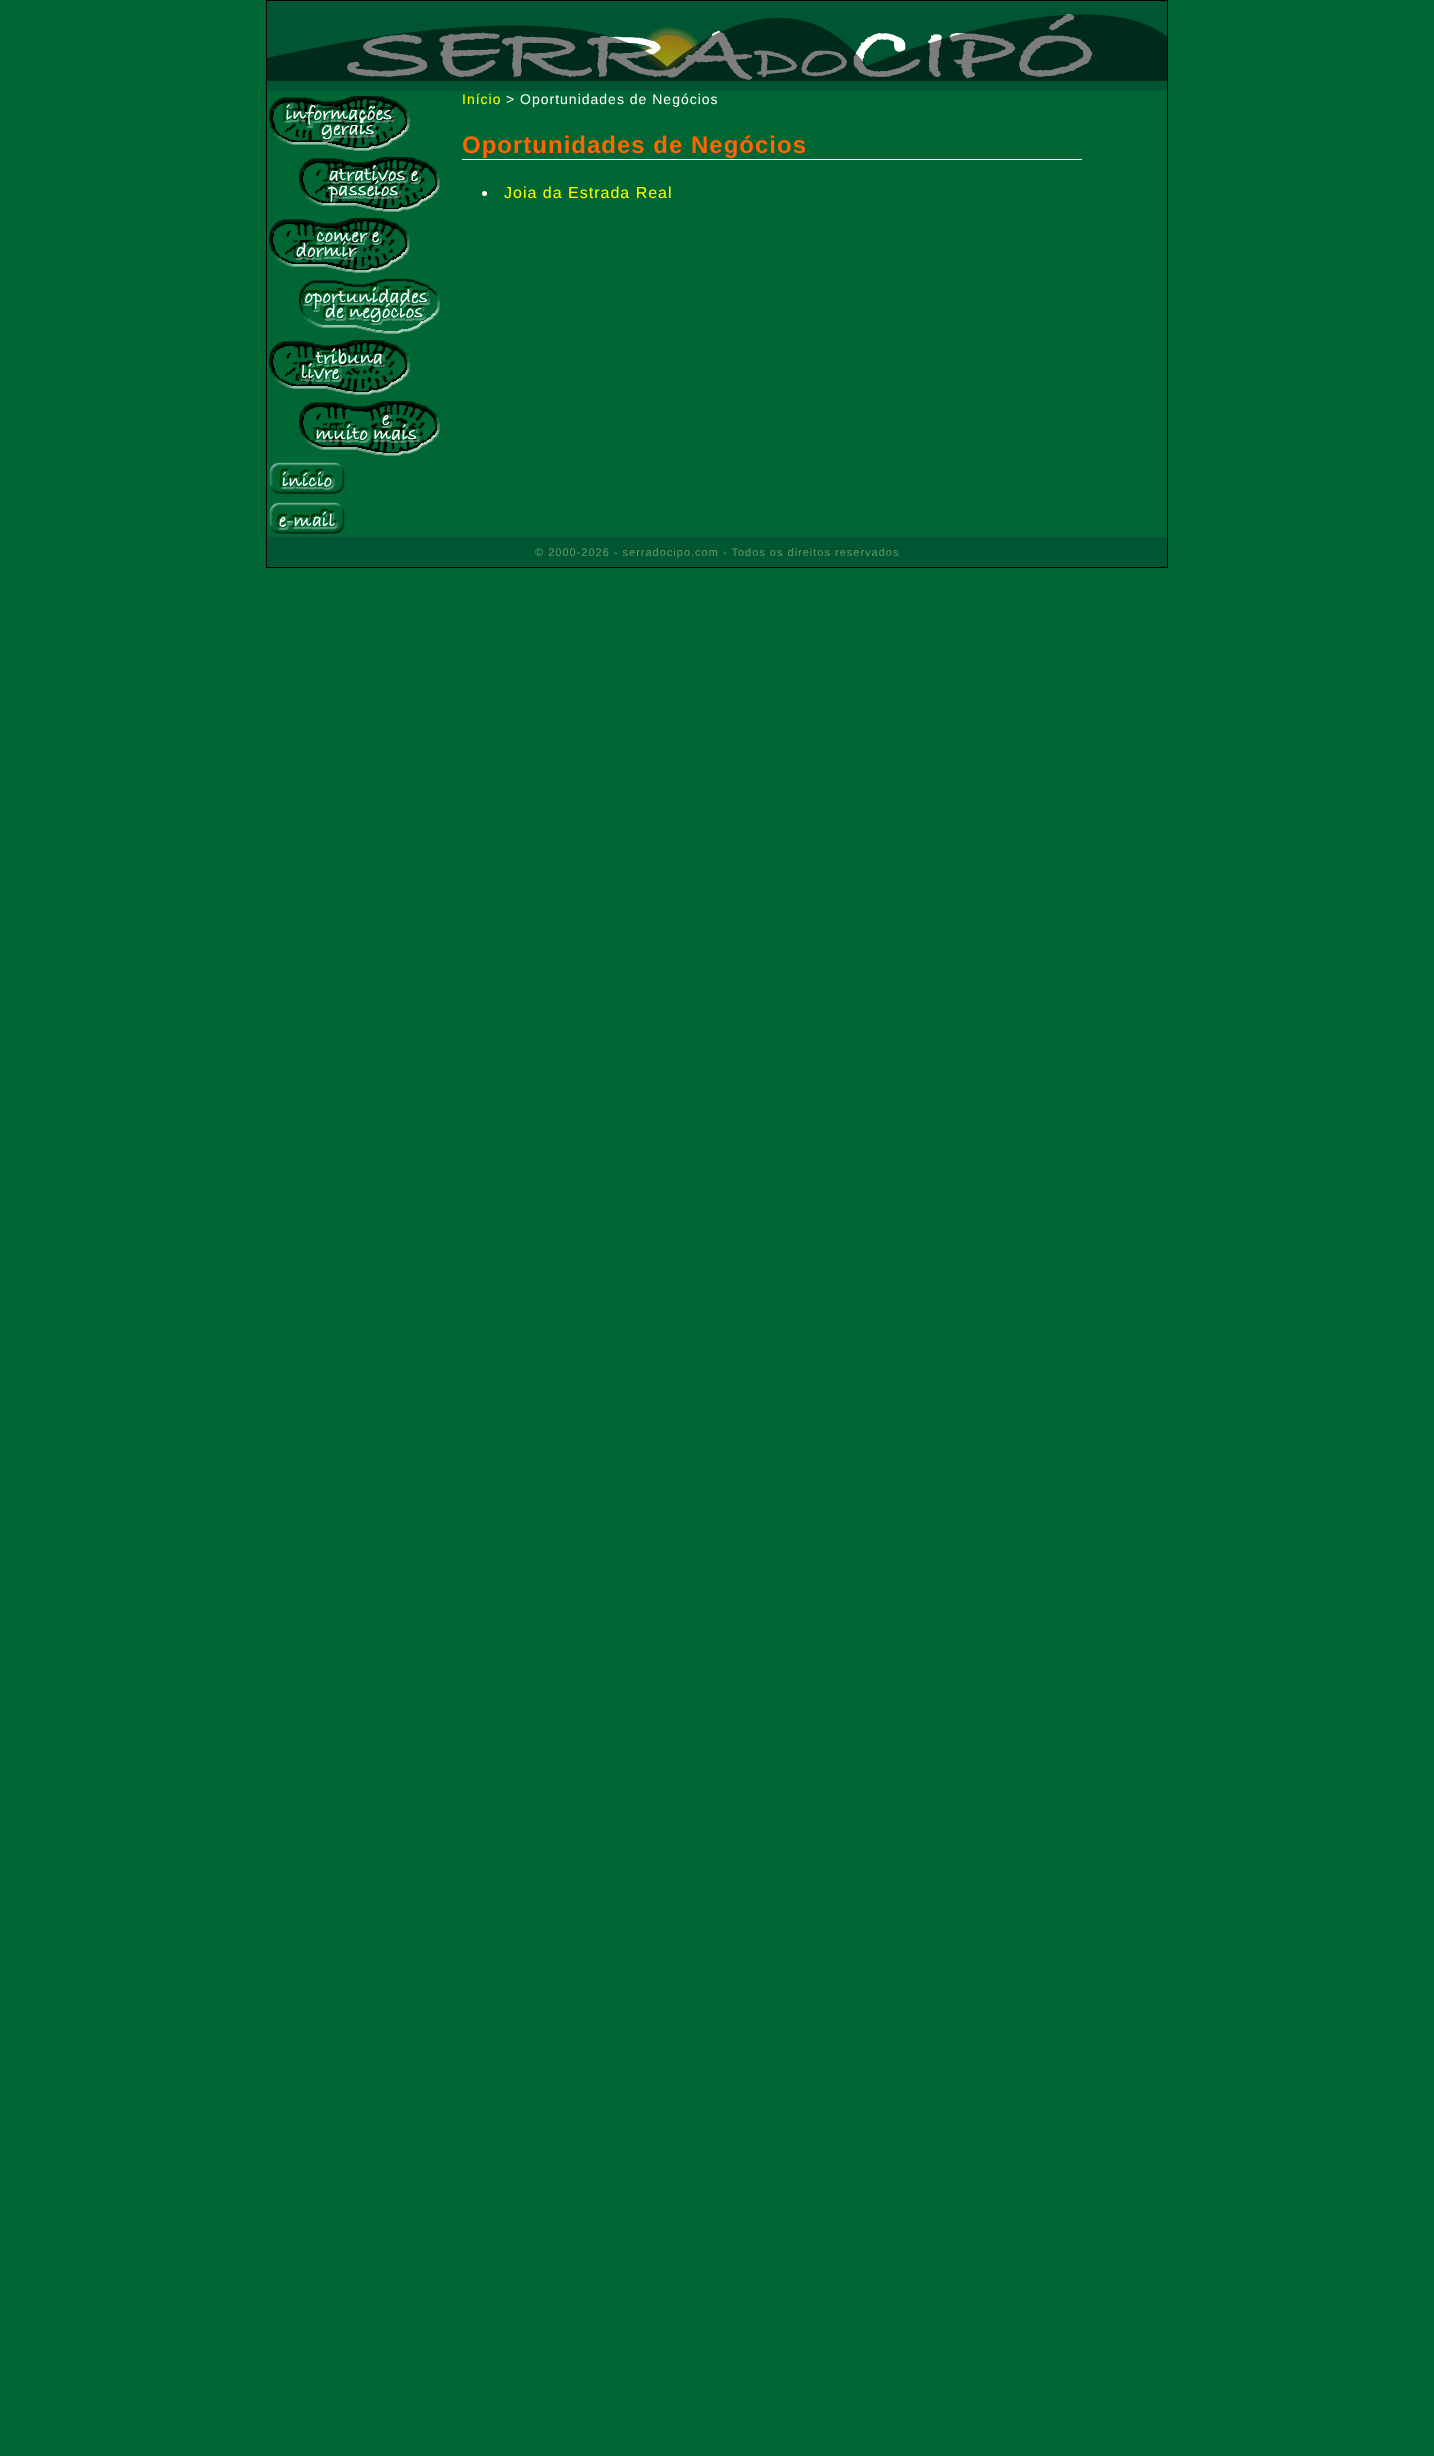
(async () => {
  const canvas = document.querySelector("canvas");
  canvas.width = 1434;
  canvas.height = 2456;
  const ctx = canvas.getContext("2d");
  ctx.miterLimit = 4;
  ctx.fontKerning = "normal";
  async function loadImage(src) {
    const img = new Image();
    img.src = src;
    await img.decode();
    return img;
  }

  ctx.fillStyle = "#006633";
  ctx.fillRect(0, 0, 1434, 2456);
  ctx.strokeStyle = "#000000";
  ctx.strokeRect(266.5, 0.5, 901, 567);
  ctx.fillStyle = "#005533";
  ctx.fillRect(267, 1, 900, 90);
  ctx.drawImage(await loadImage("img/1.png"), 267, 14, 900, 67);
  ctx.drawImage(await loadImage("img/2.png"), 269, 96, 141, 55);
  ctx.drawImage(await loadImage("img/3.png"), 299, 157, 141, 55);
  ctx.drawImage(await loadImage("img/4.png"), 269, 218, 141, 55);
  ctx.drawImage(await loadImage("img/5.png"), 299, 279, 141, 55);
  ctx.drawImage(await loadImage("img/6.png"), 269, 340, 141, 55);
  ctx.drawImage(await loadImage("img/7.png"), 299, 401, 141, 55);
  ctx.drawImage(await loadImage("img/8.png"), 269, 462, 76, 32);
  ctx.drawImage(await loadImage("img/9.png"), 269, 502, 76, 32);
  ctx.fillStyle = "#ffffff";
  ctx.fillRect(462, 159, 620, 1);
  ctx.beginPath();
  ctx.arc(484.5, 193.5, 2.5, 0, Math.PI * 2);
  ctx.fill();
  ctx.fillStyle = "#005633";
  ctx.fillRect(267, 537, 900, 30);
  ctx.letterSpacing = "1px";
  ctx.font = "14px Liberation Sans";
  ctx.fillStyle = "#ffff00";
  ctx.fillText("Início", 462, 104);
  ctx.fillStyle = "#ffffff";
  ctx.fillText("> Oportunidades de Negócios", 506, 104);
  ctx.font = "bold 24px Liberation Sans";
  ctx.fillStyle = "#ff6600";
  ctx.fillText("Oportunidades de Negócios", 462, 153);
  ctx.font = "16px Liberation Sans";
  ctx.fillStyle = "#ffff00";
  ctx.fillText("Joia da Estrada Real", 504, 198);
  ctx.font = "11px Liberation Sans";
  ctx.fillStyle = "#669966";
  ctx.fillText("© 2000-2026 - serradocipo.com - Todos os direitos reservados", 535, 556);
})();
